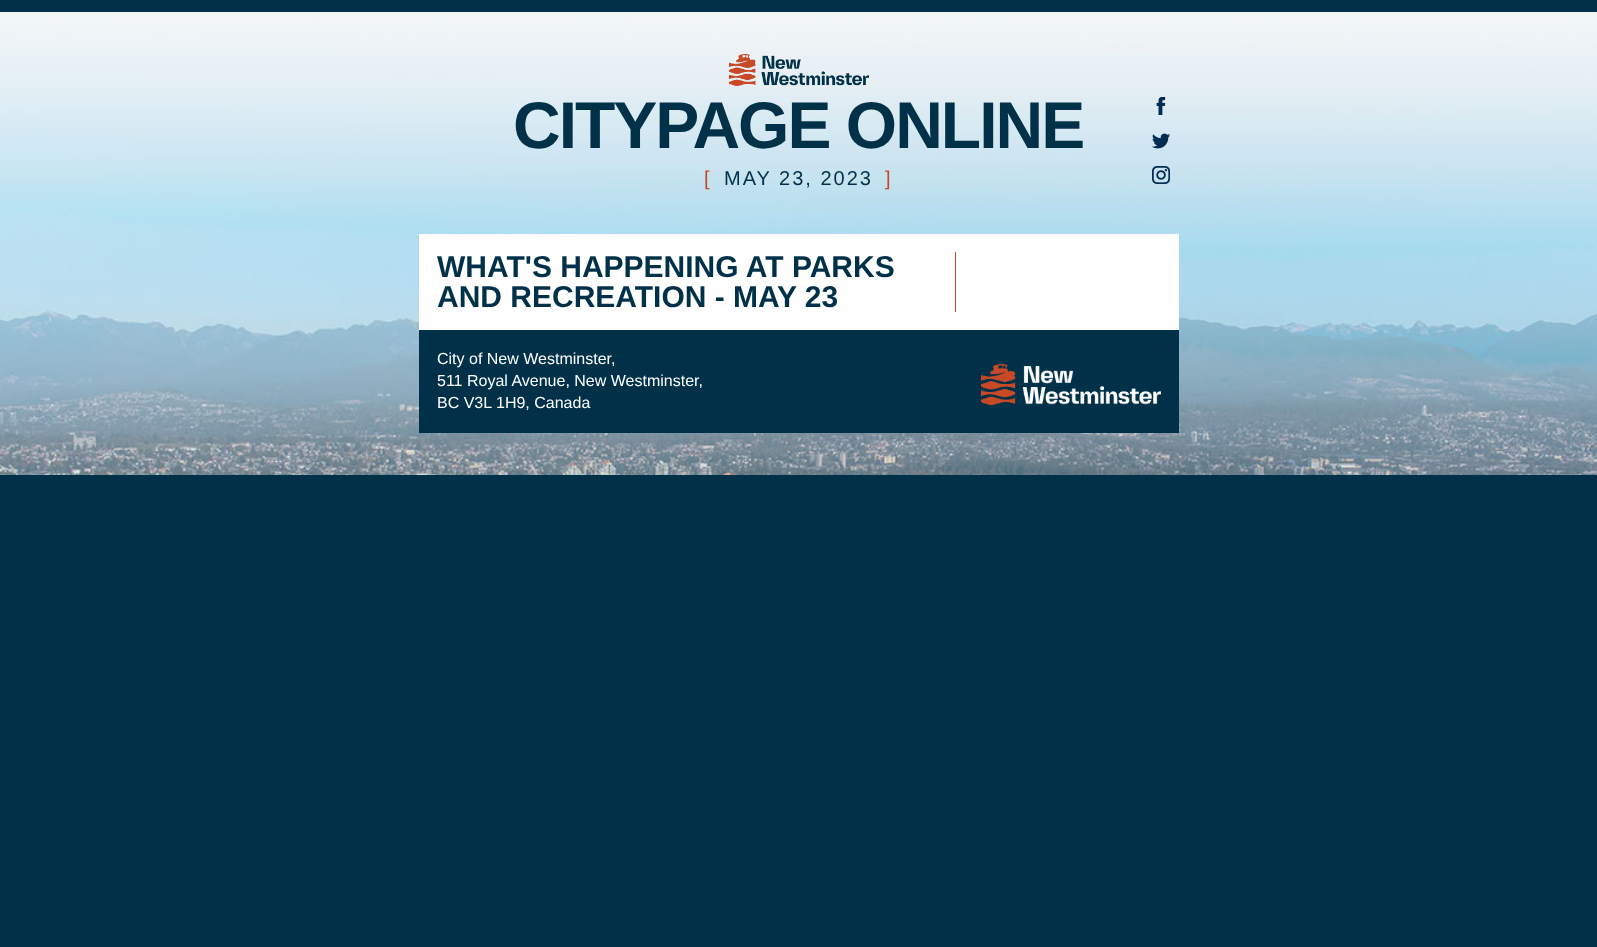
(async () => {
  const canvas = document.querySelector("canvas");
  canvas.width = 1597;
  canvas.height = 947;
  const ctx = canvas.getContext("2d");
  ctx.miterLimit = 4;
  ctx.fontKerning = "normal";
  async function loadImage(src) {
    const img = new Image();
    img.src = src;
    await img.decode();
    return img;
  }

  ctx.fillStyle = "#003149";
  ctx.fillRect(0, 0, 1597, 947);
  ctx.drawImage(await loadImage("img/1.png"), 0, 12, 1597, 463);
  ctx.drawImage(await loadImage("img/2.png"), 729, 54, 140, 32);
  ctx.drawImage(await loadImage("img/3.png"), 1156, 97, 10, 18);
  ctx.drawImage(await loadImage("img/4.png"), 1152, 133, 18, 16);
  ctx.drawImage(await loadImage("img/5.png"), 1152, 166, 18, 18);
  for (const [x, y, w, h, color] of [
    [419, 234, 760, 96, "#ffffff"],
    [955, 252, 1, 60, "#c94927"],
    [419, 330, 760, 103, "#003149"],
  ]) {
    ctx.fillStyle = color;
    ctx.fillRect(x, y, w, h);
  }
  ctx.drawImage(await loadImage("img/6.png"), 981, 364, 180, 41);
  ctx.letterSpacing = "-2px";
  ctx.font = "bold 66px Liberation Sans";
  ctx.fillText("CITYPAGE ONLINE", 513, 148);
  ctx.letterSpacing = "2px";
  ctx.font = "20px Liberation Sans";
  ctx.fillStyle = "#c94927";
  ctx.fillText("[", 704, 185);
  ctx.fillStyle = "#003149";
  ctx.fillText("MAY 23, 2023", 724, 185);
  ctx.fillStyle = "#c94927";
  ctx.fillText("]", 885, 185);
  ctx.letterSpacing = "0px";
  ctx.font = "bold 30px Liberation Sans";
  ctx.fillStyle = "#003149";
  ctx.fillText("WHAT'S HAPPENING AT PARKS", 437, 277);
  ctx.fillText("AND RECREATION - MAY 23", 437, 307);
  ctx.font = "16px Liberation Sans";
  ctx.fillStyle = "#ffffff";
  for (const [text, x, y] of [
    ["City of New Westminster,", 437, 364],
    ["511 Royal Avenue, New Westminster,", 437, 386],
    ["BC V3L 1H9, Canada", 437, 408],
  ]) {
    ctx.fillText(text, x, y);
  }
})();
